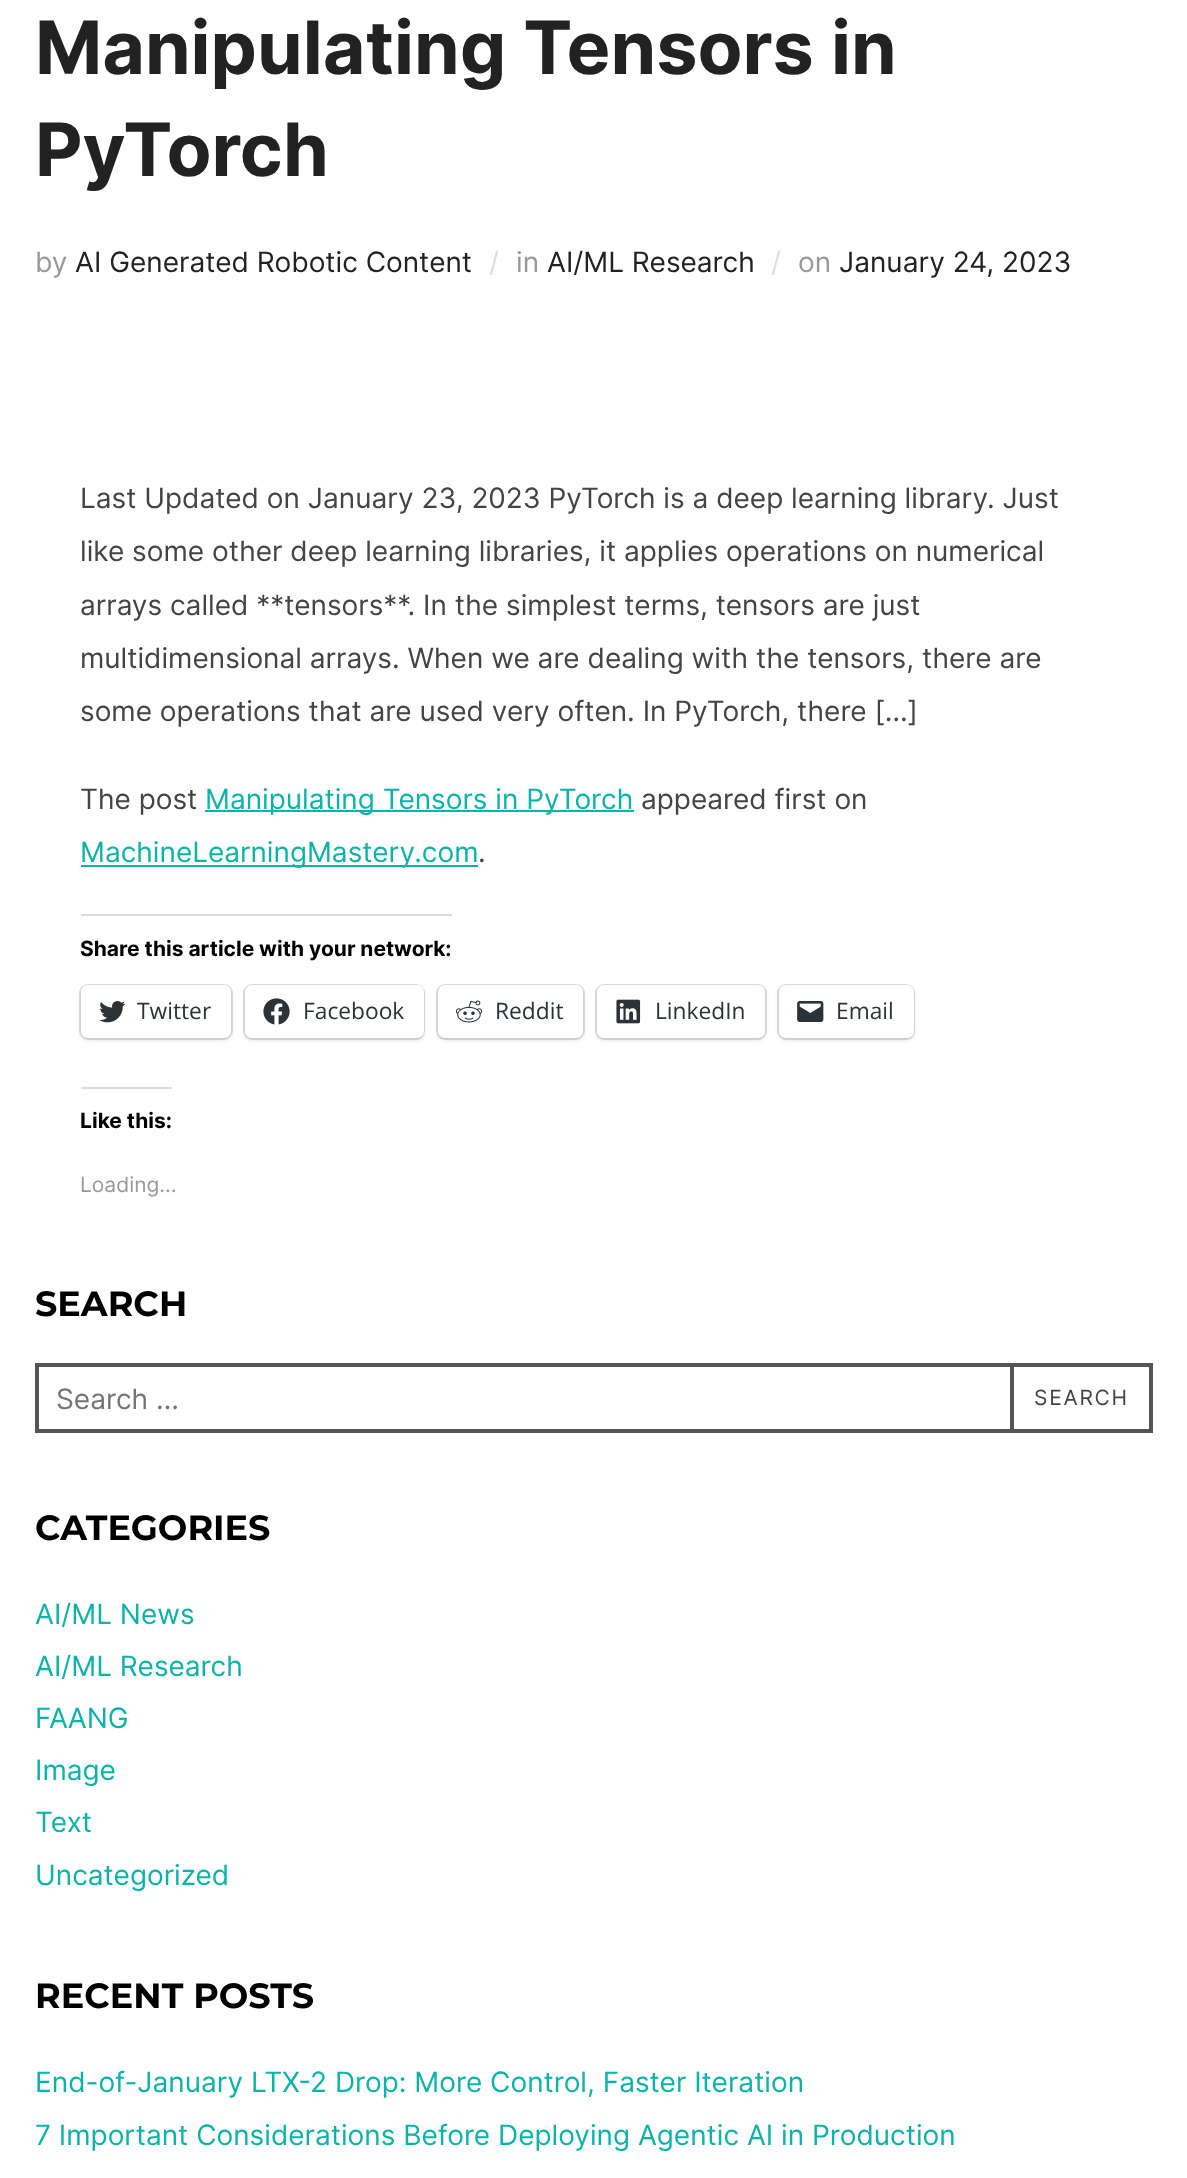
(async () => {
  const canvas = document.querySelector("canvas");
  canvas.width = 1187;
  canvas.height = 2178;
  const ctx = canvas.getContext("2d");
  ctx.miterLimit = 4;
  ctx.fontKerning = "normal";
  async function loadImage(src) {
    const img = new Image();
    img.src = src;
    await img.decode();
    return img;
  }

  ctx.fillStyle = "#ffffff";
  ctx.fillRect(0, 0, 1187, 2178);
  for (const [x, y, w, h, color] of [
    [205, 810, 429, 2, "#0bb4aa"],
    [81, 865, 397, 2, "#0bb4aa"],
    [81, 914, 371, 2, "#dcdcde"],
  ]) {
    ctx.fillStyle = color;
    ctx.fillRect(x, y, w, h);
  }
  ctx.beginPath();
  ctx.roundRect(80, 985, 152, 54, 8);
  ctx.strokeStyle = "#e0e0e0";
  ctx.lineWidth = 2;
  ctx.stroke();
  ctx.fillStyle = "rgba(0, 0, 0, 0.12)";
  ctx.filter = "blur(2px)";
  ctx.beginPath();
  ctx.roundRect(81, 987, 150, 53, 7);
  ctx.fill();
  ctx.filter = "none";
  ctx.fillStyle = "#ffffff";
  ctx.beginPath();
  ctx.roundRect(81, 985, 150, 53, 7);
  ctx.fill();
  ctx.drawImage(await loadImage("img/1.png"), 99, 1001, 27, 22);
  ctx.beginPath();
  ctx.roundRect(244, 985, 180, 54, 8);
  ctx.stroke();
  ctx.fillStyle = "rgba(0, 0, 0, 0.12)";
  ctx.filter = "blur(2px)";
  ctx.beginPath();
  ctx.roundRect(245, 987, 179, 53, 7);
  ctx.fill();
  ctx.filter = "none";
  ctx.fillStyle = "#ffffff";
  ctx.beginPath();
  ctx.roundRect(245, 985, 179, 53, 7);
  ctx.fill();
  ctx.drawImage(await loadImage("img/2.png"), 263, 998, 27, 27);
  ctx.beginPath();
  ctx.roundRect(437, 985, 147, 54, 8);
  ctx.stroke();
  ctx.fillStyle = "rgba(0, 0, 0, 0.12)";
  ctx.filter = "blur(2px)";
  ctx.beginPath();
  ctx.roundRect(438, 987, 145, 53, 7);
  ctx.fill();
  ctx.filter = "none";
  ctx.fillStyle = "#ffffff";
  ctx.beginPath();
  ctx.roundRect(438, 985, 145, 53, 7);
  ctx.fill();
  ctx.drawImage(await loadImage("img/3.png"), 455, 1000, 28, 23);
  ctx.beginPath();
  ctx.roundRect(596, 985, 170, 54, 8);
  ctx.stroke();
  ctx.fillStyle = "rgba(0, 0, 0, 0.12)";
  ctx.filter = "blur(2px)";
  ctx.beginPath();
  ctx.roundRect(597, 987, 168, 53, 7);
  ctx.fill();
  ctx.filter = "none";
  ctx.fillStyle = "#ffffff";
  ctx.beginPath();
  ctx.roundRect(597, 985, 168, 53, 7);
  ctx.fill();
  ctx.drawImage(await loadImage("img/4.png"), 616, 999, 25, 25);
  ctx.beginPath();
  ctx.roundRect(778, 985, 136, 54, 8);
  ctx.stroke();
  ctx.fillStyle = "rgba(0, 0, 0, 0.12)";
  ctx.filter = "blur(2px)";
  ctx.beginPath();
  ctx.roundRect(779, 987, 135, 53, 7);
  ctx.fill();
  ctx.filter = "none";
  ctx.fillStyle = "#ffffff";
  ctx.beginPath();
  ctx.roundRect(779, 985, 135, 53, 7);
  ctx.fill();
  ctx.drawImage(await loadImage("img/5.png"), 797, 1001, 27, 21);
  ctx.fillStyle = "#dcdcde";
  ctx.fillRect(81, 1087, 91, 2);
  ctx.strokeStyle = "#565555";
  ctx.lineWidth = 4;
  ctx.strokeRect(37, 1365, 1114, 66);
  ctx.strokeRect(1012, 1365, 139, 66);
  ctx.font = "bold 73.5px Inter";
  ctx.fillStyle = "#222222";
  ctx.fillText("Manipulating Tensors in", 35, 74);
  ctx.fillText("PyTorch", 35, 176);
  ctx.font = "28px Inter";
  ctx.fillStyle = "#999999";
  ctx.fillText("by", 35, 272);
  ctx.fillStyle = "#222222";
  ctx.fillText("AI Generated Robotic Content", 75, 272);
  ctx.fillStyle = "#dbdddd";
  ctx.fillText("/", 489, 272);
  ctx.fillStyle = "#999999";
  ctx.fillText("in", 516, 272);
  ctx.fillStyle = "#222222";
  ctx.fillText("AI/ML Research", 547, 272);
  ctx.fillStyle = "#dbdddd";
  ctx.fillText("/", 771, 272);
  ctx.fillStyle = "#999999";
  ctx.fillText("on", 798, 272);
  ctx.fillStyle = "#222222";
  ctx.fillText("January 24, 2023", 839, 272);
  ctx.fillStyle = "#444444";
  for (const [text, x, y] of [
    ["Last Updated on January 23, 2023 PyTorch is a deep learning library. Just", 80, 508],
    ["like some other deep learning libraries, it applies operations on numerical", 80, 561],
    ["arrays called **tensors**. In the simplest terms, tensors are just", 80, 615],
    ["multidimensional arrays. When we are dealing with the tensors, there are", 80, 668],
    ["some operations that are used very often. In PyTorch, there […]", 80, 721],
    ["The post", 80, 809],
  ]) {
    ctx.fillText(text, x, y);
  }
  ctx.fillStyle = "#0bb4aa";
  ctx.fillText("Manipulating Tensors in PyTorch", 205, 809);
  ctx.fillStyle = "#444444";
  ctx.fillText("appeared first on", 641, 809);
  ctx.fillStyle = "#0bb4aa";
  ctx.fillText("MachineLearningMastery.com", 80, 862);
  ctx.fillStyle = "#444444";
  ctx.fillText(".", 478, 862);
  ctx.font = "bold 21px Inter";
  ctx.fillStyle = "#000000";
  ctx.fillText("Share this article with your network:", 80, 956);
  ctx.font = "22.75px Open Sans";
  ctx.fillStyle = "#2c3338";
  for (const [text, x, y] of [
    ["Twitter", 137, 1019],
    ["Facebook", 303, 1019],
    ["Reddit", 495, 1019],
    ["LinkedIn", 655, 1019],
    ["Email", 836, 1019],
  ]) {
    ctx.fillText(text, x, y);
  }
  ctx.font = "bold 21px Inter";
  ctx.fillStyle = "#000000";
  ctx.fillText("Like this:", 80, 1128);
  ctx.font = "21px Inter";
  ctx.fillStyle = "#999999";
  ctx.fillText("Loading...", 80, 1192);
  ctx.font = "bold 35px Montserrat";
  ctx.fillStyle = "#000000";
  ctx.fillText("SEARCH", 35, 1316);
  ctx.font = "28px Inter";
  ctx.fillStyle = "#757575";
  ctx.fillText("Search …", 56, 1409);
  ctx.letterSpacing = "1.75px";
  ctx.font = "21px Inter";
  ctx.fillStyle = "#444444";
  ctx.fillText("SEARCH", 1034, 1405);
  ctx.letterSpacing = "0px";
  ctx.font = "bold 35px Montserrat";
  ctx.fillStyle = "#000000";
  ctx.fillText("CATEGORIES", 35, 1540);
  ctx.font = "28px Inter";
  ctx.fillStyle = "#0bb4aa";
  for (const [text, x, y] of [
    ["AI/ML News", 35, 1624],
    ["AI/ML Research", 35, 1676],
    ["FAANG", 35, 1728],
    ["Image", 35, 1780],
    ["Text", 35, 1832],
    ["Uncategorized", 35, 1885],
  ]) {
    ctx.fillText(text, x, y);
  }
  ctx.font = "bold 35px Montserrat";
  ctx.fillStyle = "#000000";
  ctx.fillText("RECENT POSTS", 35, 2008);
  ctx.font = "28px Inter";
  ctx.fillStyle = "#0bb4aa";
  ctx.fillText("End-of-January LTX-2 Drop: More Control, Faster Iteration", 35, 2092);
  ctx.fillText("7 Important Considerations Before Deploying Agentic AI in Production", 35, 2145);
})();
